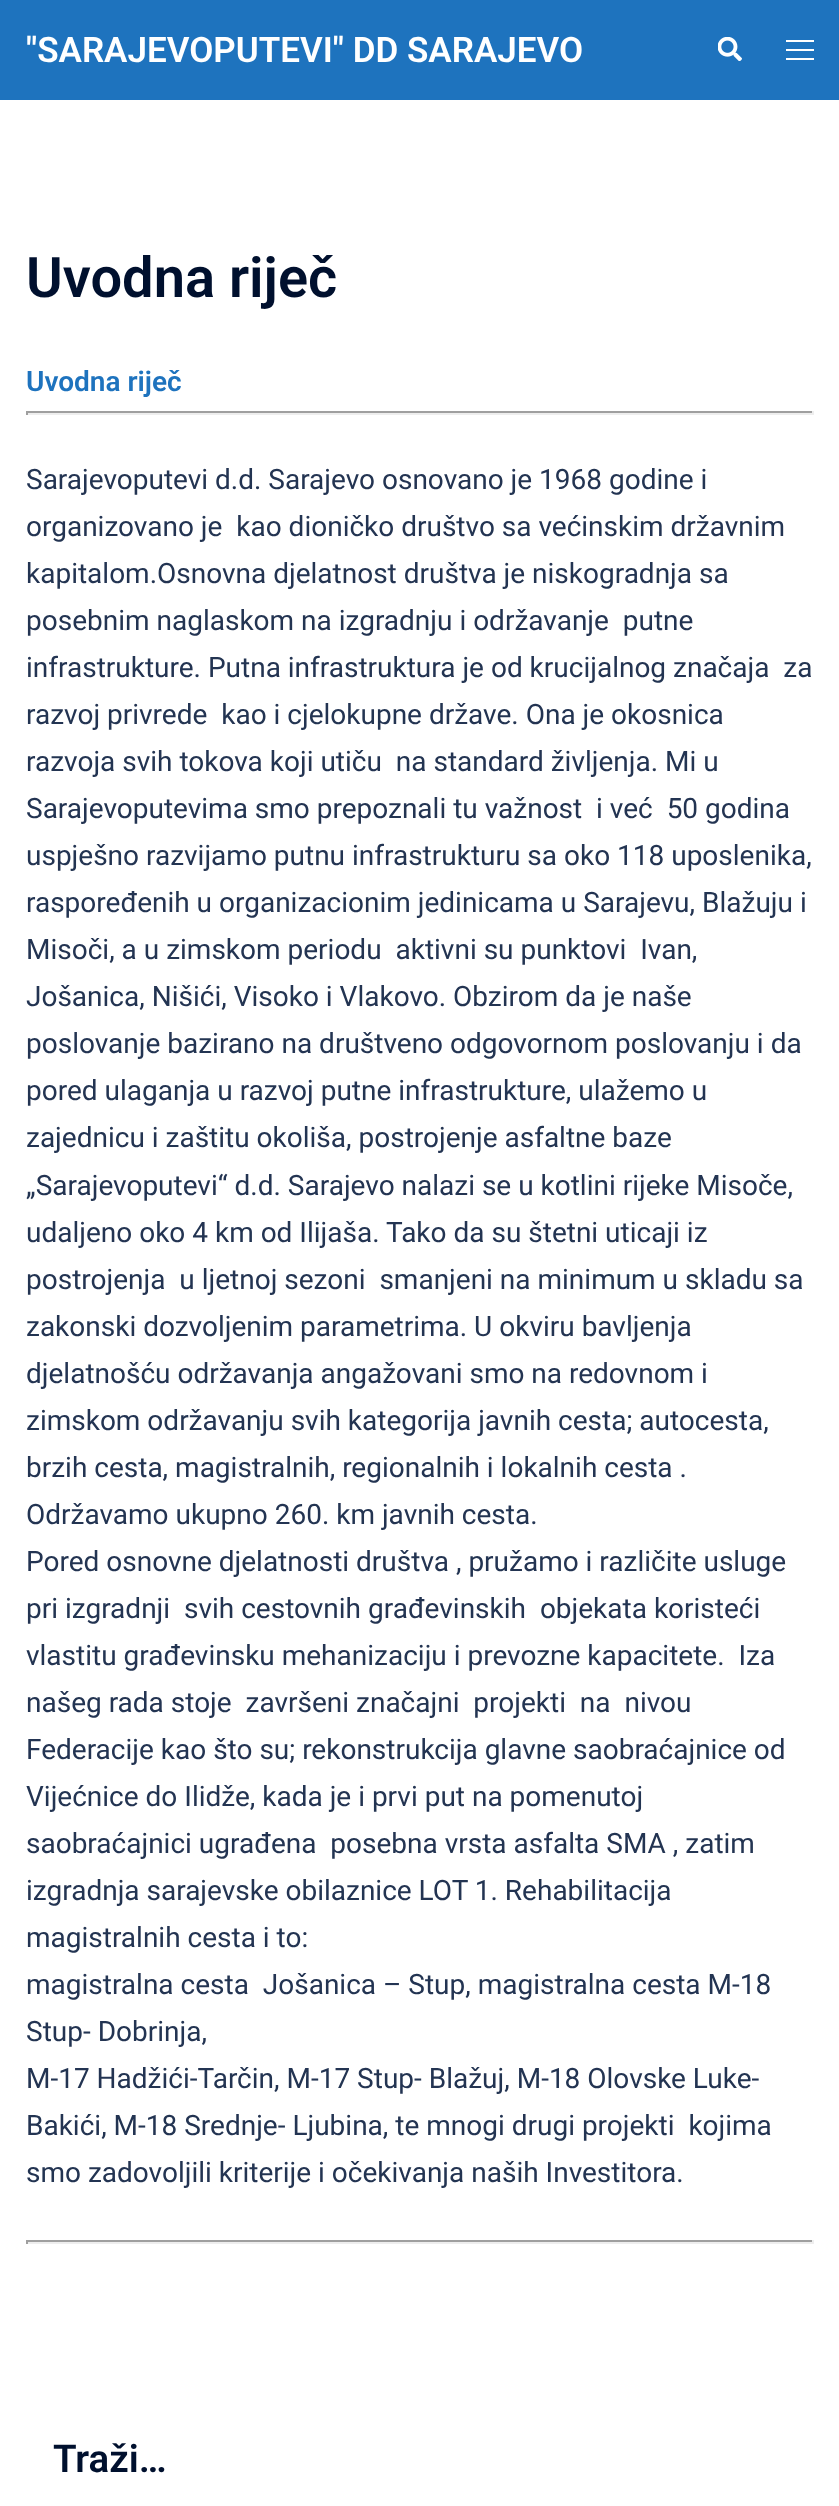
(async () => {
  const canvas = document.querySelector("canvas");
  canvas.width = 839;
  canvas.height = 2506;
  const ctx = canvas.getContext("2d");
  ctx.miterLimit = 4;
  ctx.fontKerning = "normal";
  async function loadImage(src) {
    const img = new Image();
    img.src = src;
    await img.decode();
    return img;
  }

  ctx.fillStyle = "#ffffff";
  ctx.fillRect(0, 0, 839, 2506);
  ctx.fillStyle = "#1e73be";
  ctx.fillRect(0, 0, 839, 100);
  ctx.drawImage(await loadImage("img/1.png"), 718, 37, 24, 24);
  for (const [x, y, w, h, color] of [
    [786, 40, 28, 2, "#ffffff"],
    [786, 49, 28, 2, "#ffffff"],
    [786, 58, 28, 2, "#ffffff"],
    [26, 411, 788, 2, "#9f9f9f"],
    [812, 411, 2, 4, "#eeeeee"],
    [26, 413, 788, 2, "#eeeeee"],
    [26, 411, 2, 4, "#9f9f9f"],
    [26, 2240, 788, 2, "#9f9f9f"],
    [812, 2240, 2, 4, "#eeeeee"],
    [26, 2242, 788, 2, "#eeeeee"],
    [26, 2240, 2, 4, "#9f9f9f"],
  ]) {
    ctx.fillStyle = color;
    ctx.fillRect(x, y, w, h);
  }
  ctx.font = "600 35px Roboto";
  ctx.fillStyle = "#ffffff";
  ctx.fillText("\"SARAJEVOPUTEVI\" DD SARAJEVO", 26, 62);
  ctx.font = "600 56px Roboto";
  ctx.fillStyle = "#00102e";
  ctx.fillText("Uvodna riječ", 26, 297);
  ctx.font = "600 28px Roboto";
  ctx.fillStyle = "#1e73be";
  ctx.fillText("Uvodna riječ", 26, 391);
  ctx.font = "28px Roboto";
  ctx.fillStyle = "#233452";
  for (const [text, x, y] of [
    ["Sarajevoputevi d.d. Sarajevo osnovano je 1968 godine i", 26, 489],
    ["organizovano je  kao dioničko društvo sa većinskim državnim", 26, 536],
    ["kapitalom.Osnovna djelatnost društva je niskogradnja sa", 26, 583],
    ["posebnim naglaskom na izgradnju i održavanje  putne", 26, 630],
    ["infrastrukture. Putna infrastruktura je od krucijalnog značaja  za", 26, 677],
    ["razvoj privrede  kao i cjelokupne države. Ona je okosnica", 26, 724],
    ["razvoja svih tokova koji utiču  na standard življenja. Mi u", 26, 771],
    ["Sarajevoputevima smo prepoznali tu važnost  i već  50 godina", 26, 818],
    ["uspješno razvijamo putnu infrastrukturu sa oko 118 uposlenika,", 26, 865],
    ["raspoređenih u organizacionim jedinicama u Sarajevu, Blažuju i", 26, 912],
    ["Misoči, a u zimskom periodu  aktivni su punktovi  Ivan,", 26, 959],
    ["Jošanica, Nišići, Visoko i Vlakovo. Obzirom da je naše", 26, 1006],
    ["poslovanje bazirano na društveno odgovornom poslovanju i da", 26, 1053],
    ["pored ulaganja u razvoj putne infrastrukture, ulažemo u", 26, 1100],
    ["zajednicu i zaštitu okoliša, postrojenje asfaltne baze", 26, 1147],
    ["„Sarajevoputevi“ d.d. Sarajevo nalazi se u kotlini rijeke Misoče,", 26, 1195],
    ["udaljeno oko 4 km od Ilijaša. Tako da su štetni uticaji iz", 26, 1242],
    ["postrojenja  u ljetnoj sezoni  smanjeni na minimum u skladu sa", 26, 1289],
    ["zakonski dozvoljenim parametrima. U okviru bavljenja", 26, 1336],
    ["djelatnošću održavanja angažovani smo na redovnom i", 26, 1383],
    ["zimskom održavanju svih kategorija javnih cesta; autocesta,", 26, 1430],
    ["brzih cesta, magistralnih, regionalnih i lokalnih cesta .", 26, 1477],
    ["Održavamo ukupno 260. km javnih cesta.", 26, 1524],
    ["Pored osnovne djelatnosti društva , pružamo i različite usluge", 26, 1571],
    ["pri izgradnji  svih cestovnih građevinskih  objekata koristeći", 26, 1618],
    ["vlastitu građevinsku mehanizaciju i prevozne kapacitete.  Iza", 26, 1665],
    ["našeg rada stoje  završeni značajni  projekti  na  nivou", 26, 1712],
    ["Federacije kao što su; rekonstrukcija glavne saobraćajnice od", 26, 1759],
    ["Vijećnice do Ilidže, kada je i prvi put na pomenutoj", 26, 1806],
    ["saobraćajnici ugrađena  posebna vrsta asfalta SMA , zatim", 26, 1853],
    ["izgradnja sarajevske obilaznice LOT 1. Rehabilitacija", 26, 1900],
    ["magistralnih cesta i to:", 26, 1947],
    ["magistralna cesta  Jošanica – Stup, magistralna cesta M-18", 26, 1994],
    ["Stup- Dobrinja,", 26, 2041],
    ["M-17 Hadžići-Tarčin, M-17 Stup- Blažuj, M-18 Olovske Luke-", 26, 2088],
    ["Bakići, M-18 Srednje- Ljubina, te mnogi drugi projekti  kojima", 26, 2135],
    ["smo zadovoljili kriterije i očekivanja naših Investitora.", 26, 2182],
  ]) {
    ctx.fillText(text, x, y);
  }
  ctx.font = "600 38.5px Roboto";
  ctx.fillStyle = "#00102e";
  ctx.fillText("Traži…", 53, 2472);
})();
